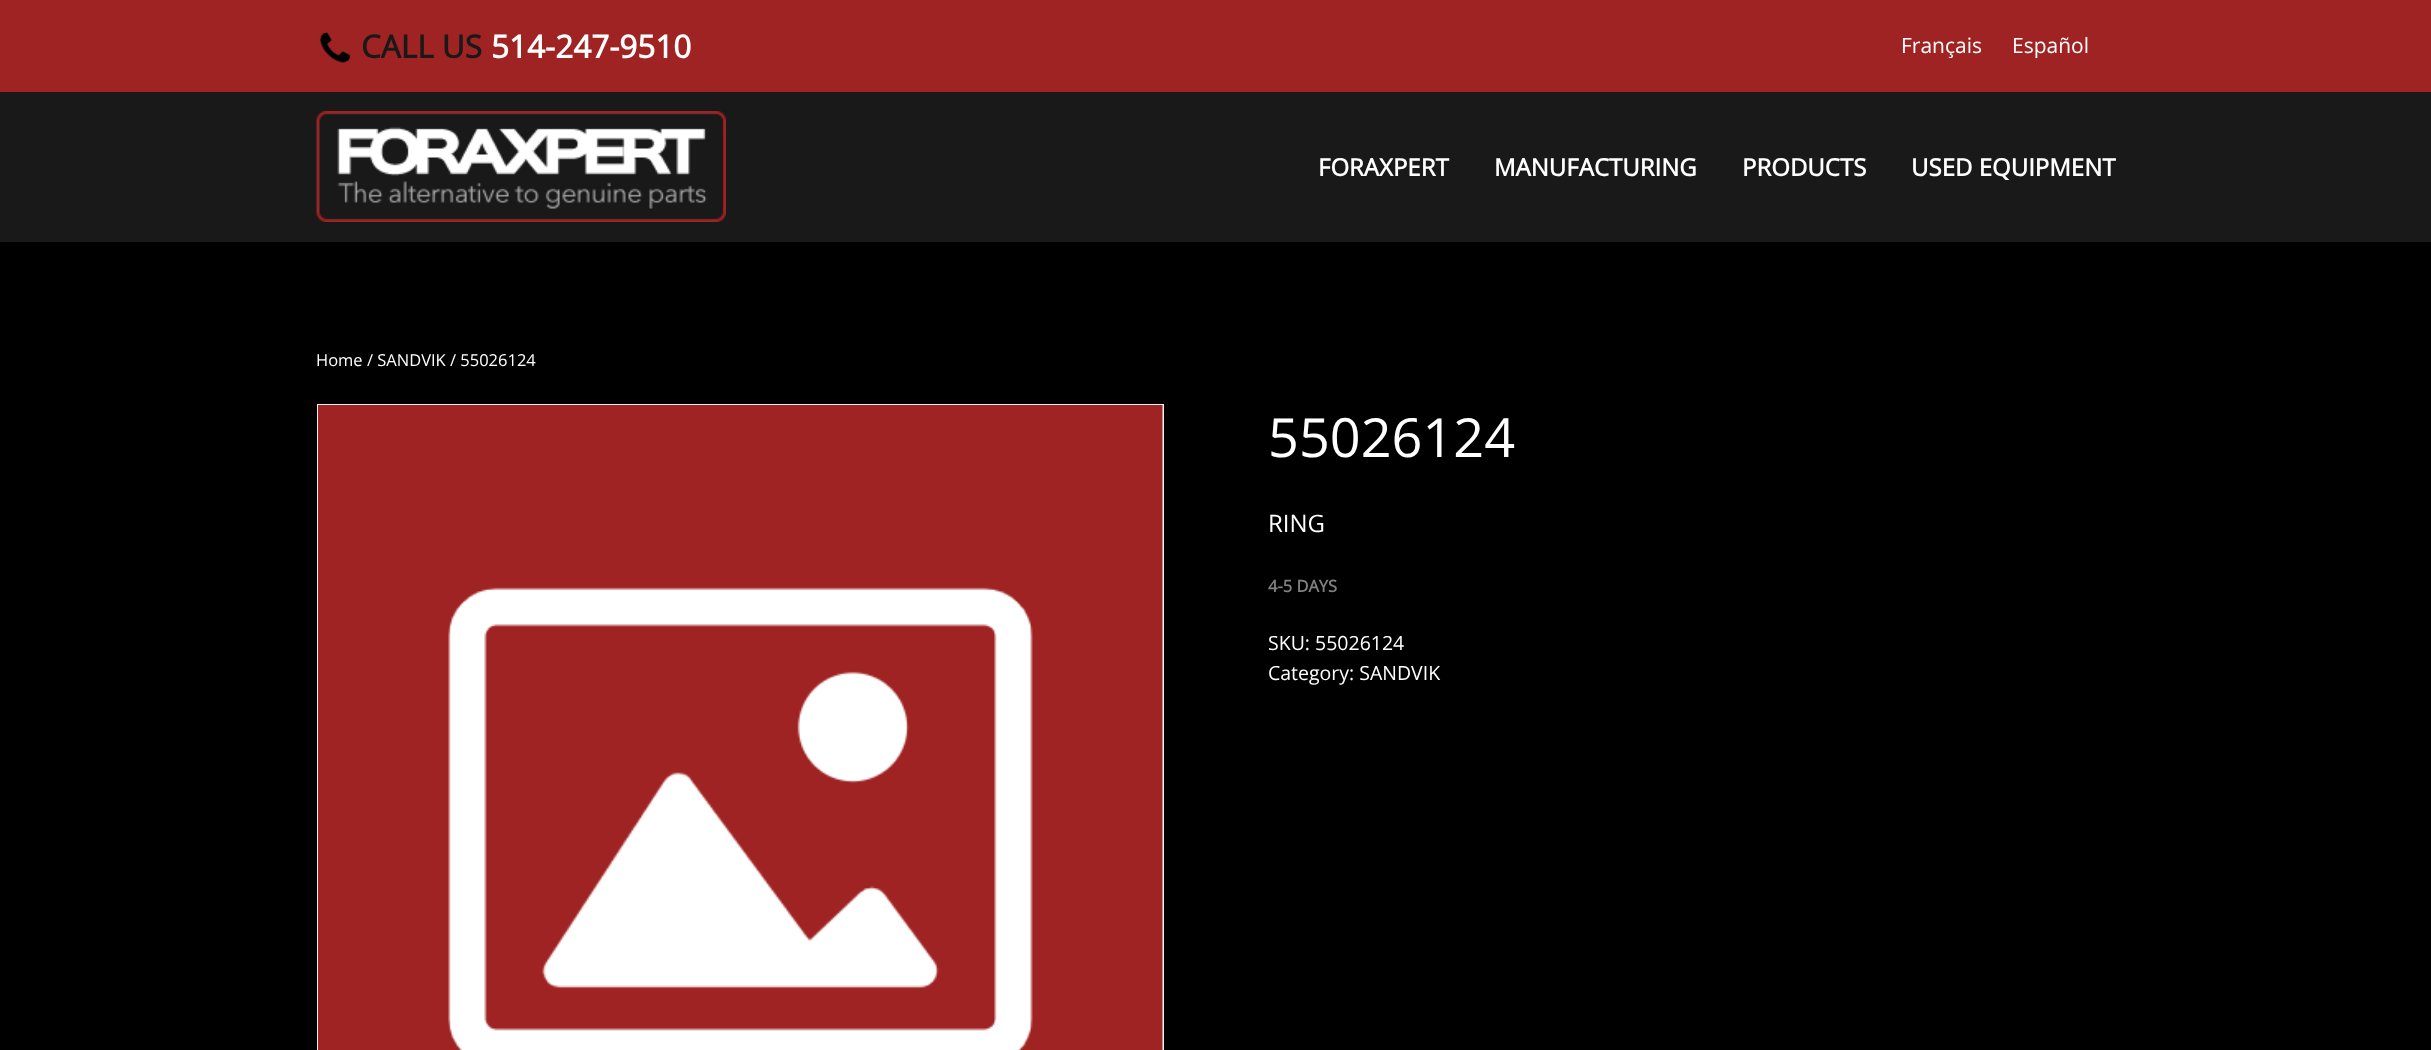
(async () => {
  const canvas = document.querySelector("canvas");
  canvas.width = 2431;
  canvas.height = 1050;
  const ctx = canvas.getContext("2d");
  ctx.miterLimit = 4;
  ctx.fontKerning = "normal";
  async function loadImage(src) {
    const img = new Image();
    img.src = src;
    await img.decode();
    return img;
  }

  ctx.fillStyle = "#000000";
  ctx.fillRect(0, 0, 2431, 1050);
  ctx.fillStyle = "#a02323";
  ctx.fillRect(0, 0, 2431, 92);
  ctx.drawImage(await loadImage("img/1.png"), 320, 32, 31, 31);
  ctx.fillStyle = "#191919";
  ctx.fillRect(0, 92, 2431, 150);
  ctx.drawImage(await loadImage("img/2.png"), 316, 111, 410, 111);
  ctx.strokeStyle = "#f2f2f2";
  ctx.lineWidth = 2;
  ctx.strokeRect(318, 405, 845, 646);
  ctx.drawImage(await loadImage("img/3.png"), 318, 405, 845, 645);
  ctx.font = "bold 31.5px Open Sans";
  ctx.fillText("CALL US", 361, 58);
  ctx.fillStyle = "#ffffff";
  ctx.fillText("514-247-9510", 491, 58);
  ctx.font = "21px Open Sans";
  ctx.fillText("Français", 1901, 53);
  ctx.fillText("Español", 2012, 53);
  ctx.font = "bold 24px Open Sans";
  for (const [text, x, y] of [
    ["FORAXPERT", 1318, 176],
    ["MANUFACTURING", 1494, 176],
    ["PRODUCTS", 1742, 176],
    ["USED EQUIPMENT", 1911, 176],
  ]) {
    ctx.fillText(text, x, y);
  }
  ctx.font = "16.5px Open Sans";
  ctx.fillText("Home / SANDVIK / 55026124", 316, 366);
  ctx.font = "54px Open Sans";
  ctx.fillText("55026124", 1268, 457);
  ctx.font = "24px Open Sans";
  ctx.fillText("RING", 1268, 532);
  ctx.font = "bold 16.5px Open Sans";
  ctx.fillStyle = "#808080";
  ctx.fillText("4-5 DAYS", 1268, 592);
  ctx.font = "19.5px Open Sans";
  ctx.fillStyle = "#ffffff";
  ctx.fillText("SKU: 55026124", 1268, 650);
  ctx.fillText("Category: SANDVIK", 1268, 680);
})();
